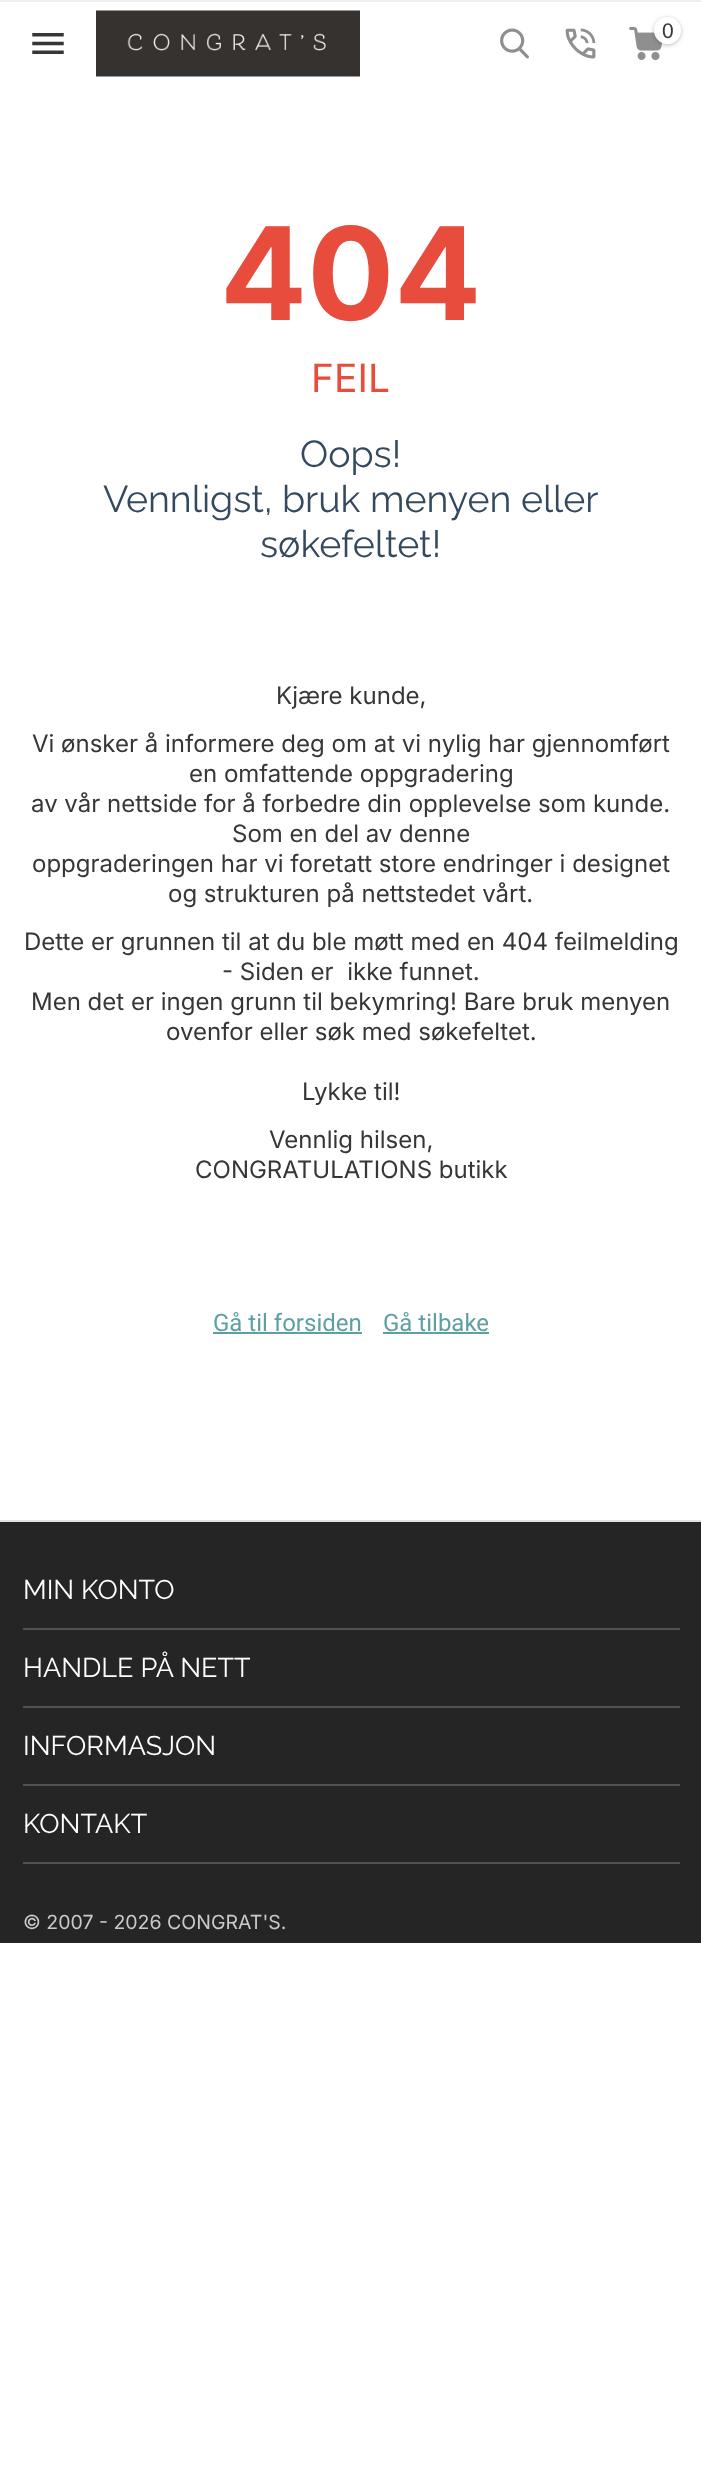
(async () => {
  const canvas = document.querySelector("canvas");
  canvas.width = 701;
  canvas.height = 2478;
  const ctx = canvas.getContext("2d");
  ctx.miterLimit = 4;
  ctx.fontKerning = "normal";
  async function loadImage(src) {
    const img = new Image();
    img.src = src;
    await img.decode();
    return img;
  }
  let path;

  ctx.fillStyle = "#ffffff";
  ctx.fillRect(0, 0, 701, 2478);
  ctx.fillStyle = "#eeeeee";
  ctx.fillRect(0, 0, 701, 2);
  ctx.drawImage(await loadImage("img/1.png"), 32, 33, 32, 21);
  ctx.drawImage(await loadImage("img/2.png"), 96, 10, 264, 67);
  ctx.drawImage(await loadImage("img/3.png"), 500, 28, 29, 31);
  ctx.drawImage(await loadImage("img/4.png"), 565, 28, 31, 31);
  ctx.drawImage(await loadImage("img/5.png"), 629, 26, 35, 35);
  ctx.save();
  path = new Path2D("M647 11H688V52H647ZM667.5 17C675 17 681 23 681 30.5C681 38 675 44 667.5 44C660 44 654 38 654 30.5C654 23 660 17 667.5 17Z");
  ctx.clip(path, "evenodd");
  ctx.fillStyle = "rgba(54, 54, 54, 0.35)";
  ctx.filter = "blur(2px)";
  ctx.beginPath();
  ctx.roundRect(654, 18, 27, 27, 13.5);
  ctx.fill();
  ctx.filter = "none";
  ctx.restore();
  ctx.fillStyle = "rgba(255, 255, 255, 0.95)";
  ctx.beginPath();
  ctx.arc(667.5, 30.5, 13.5, 0, Math.PI * 2);
  ctx.fill();
  for (const [x, y, w, h, color] of [
    [213, 1332, 149, 2, "#5da0a1"],
    [383, 1332, 106, 2, "#5da0a1"],
    [0, 1522, 701, 421, "#262525"],
    [0, 1520, 701, 2, "#e1e1e1"],
    [23, 1628, 657, 2, "#515151"],
    [23, 1706, 657, 2, "#515151"],
    [23, 1784, 657, 2, "#515151"],
    [23, 1862, 657, 2, "#515151"],
  ]) {
    ctx.fillStyle = color;
    ctx.fillRect(x, y, w, h);
  }
  ctx.font = "21px Liberation Sans";
  ctx.fillStyle = "#363636";
  ctx.fillText("0", 662, 38);
  ctx.font = "bold 129px Inter";
  ctx.fillStyle = "#e74c3c";
  ctx.fillText("404", 220, 320);
  ctx.font = "39px Inter";
  ctx.fillText("FEIL", 311, 392);
  ctx.font = "100 37.5px Raleway";
  ctx.fillStyle = "#34495e";
  for (const [text, x, y] of [
    ["Oops!", 300, 467],
    ["Vennligst, bruk menyen eller", 103, 512],
    ["søkefeltet!", 260, 557],
  ]) {
    ctx.fillText(text, x, y);
  }
  ctx.font = "24px Inter";
  ctx.fillStyle = "#363636";
  for (const [text, x, y] of [
    ["Kjære kunde,", 276, 704],
    ["Vi ønsker å informere deg om at vi nylig har gjennomført", 32, 752],
    ["en omfattende oppgradering", 189, 782],
    ["av vår nettside for å forbedre din opplevelse som kunde.", 31, 812],
    ["Som en del av denne", 232, 842],
    ["oppgraderingen har vi foretatt store endringer i designet", 32, 872],
    ["og strukturen på nettstedet vårt.", 168, 902],
    ["Dette er grunnen til at du ble møtt med en 404 feilmelding", 24, 950],
    ["- Siden er  ikke funnet.", 222, 980],
    ["Men det er ingen grunn til bekymring! Bare bruk menyen", 31, 1010],
    ["ovenfor eller søk med søkefeltet.", 166, 1040],
    ["Lykke til!", 302, 1100],
    ["Vennlig hilsen,", 269, 1148],
    ["CONGRATULATIONS butikk", 195, 1178],
  ]) {
    ctx.fillText(text, x, y);
  }
  ctx.font = "24px Roboto";
  ctx.fillStyle = "#5da0a1";
  ctx.fillText("Gå til forsiden", 213, 1331);
  ctx.fillText("Gå tilbake", 383, 1331);
  ctx.font = "100 27px Raleway";
  ctx.fillStyle = "#ffffff";
  for (const [text, x, y] of [
    ["MIN KONTO", 23, 1599],
    ["HANDLE PÅ NETT", 23, 1677],
    ["INFORMASJON", 23, 1755],
    ["KONTAKT", 23, 1833],
  ]) {
    ctx.fillText(text, x, y);
  }
  ctx.font = "19.5px Inter";
  ctx.fillStyle = "#c9c9c9";
  ctx.fillText("© 2007 - 2026 CONGRAT'S.", 23, 1929);
})();
